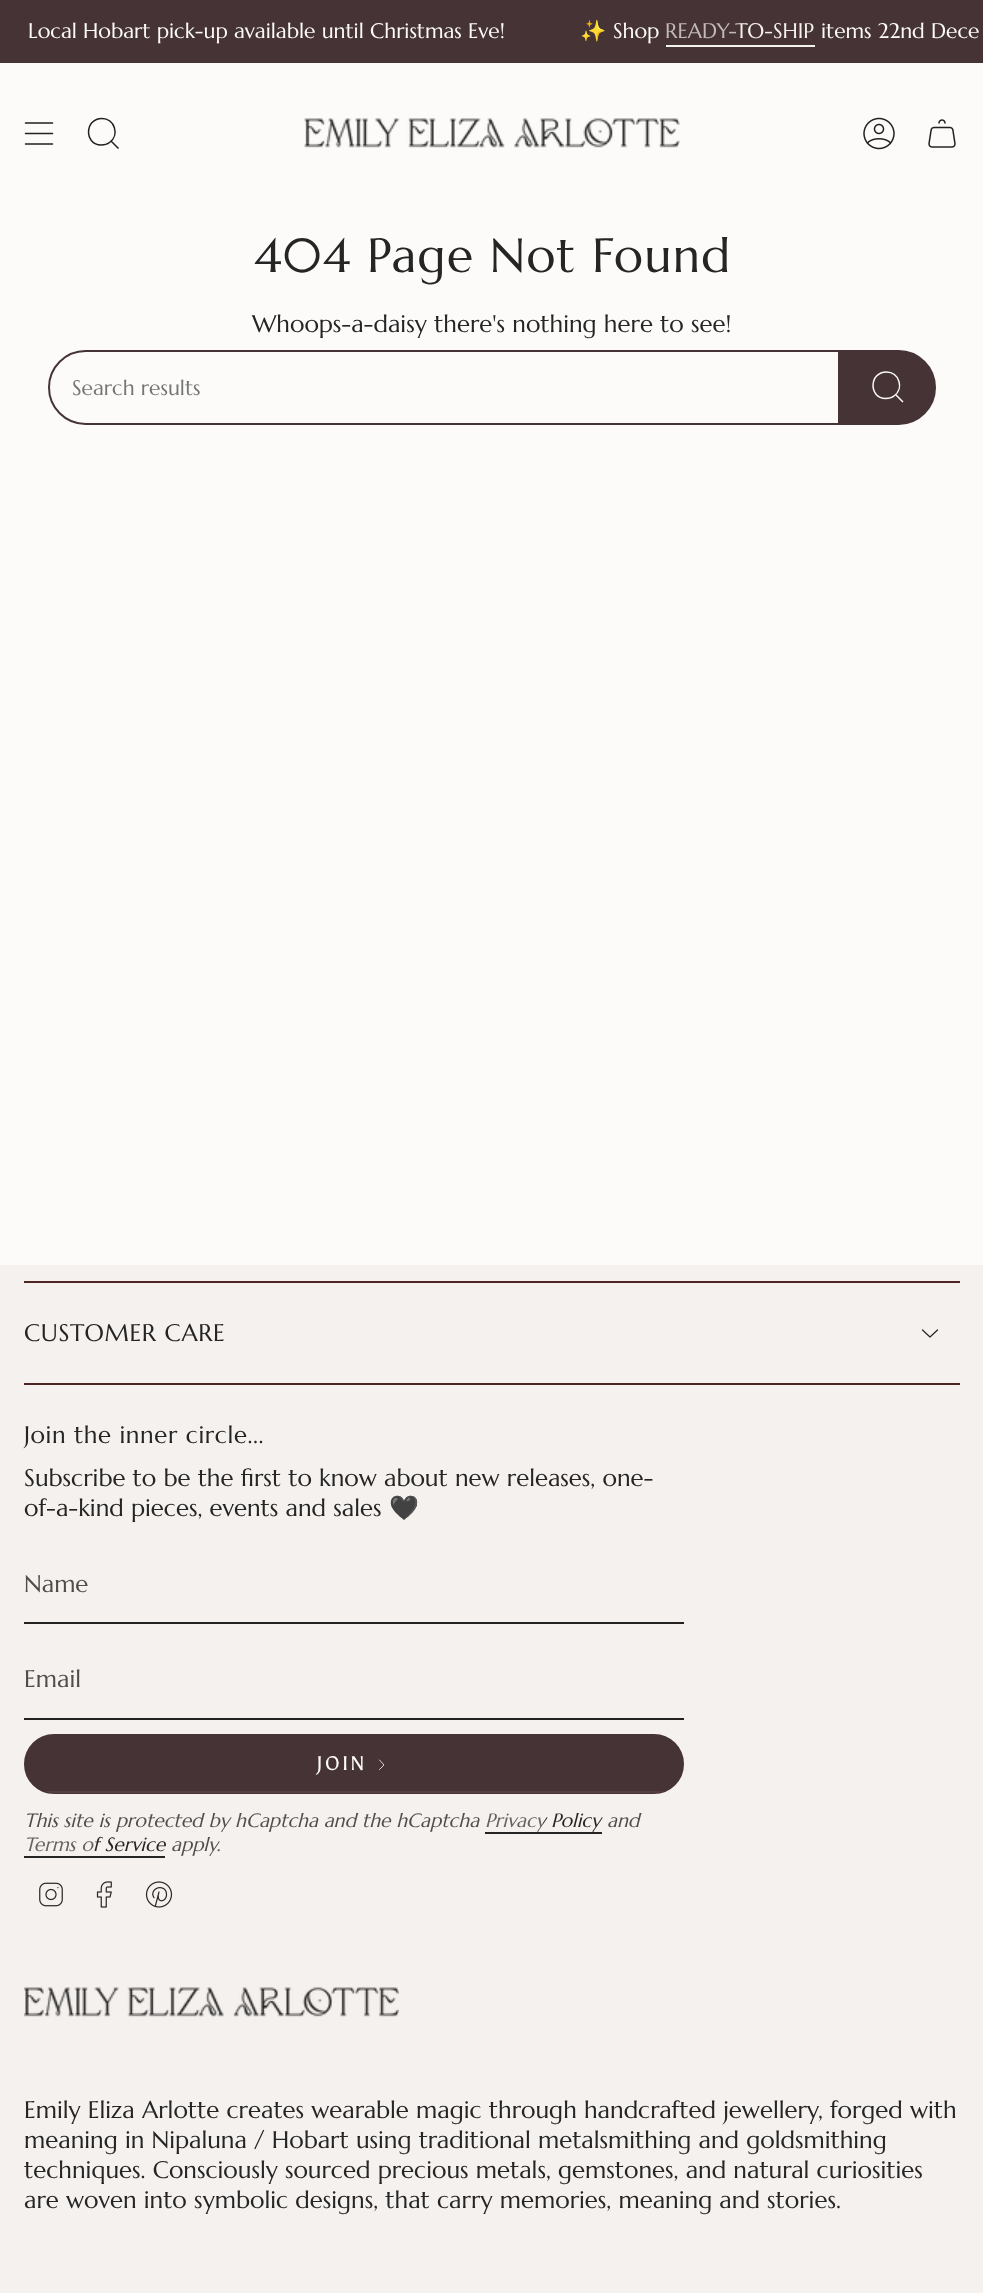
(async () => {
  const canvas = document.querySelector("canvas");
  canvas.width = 983;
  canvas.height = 2293;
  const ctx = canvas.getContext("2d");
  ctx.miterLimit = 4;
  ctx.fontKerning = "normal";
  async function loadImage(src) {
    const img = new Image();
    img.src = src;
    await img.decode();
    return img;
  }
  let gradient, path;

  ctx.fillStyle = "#fcfbfa";
  ctx.fillRect(0, 0, 983, 2293);
  ctx.fillStyle = "#463335";
  ctx.fillRect(0, 0, 983, 63);
  ctx.fillStyle = "#f5f2ec";
  ctx.fillRect(666, 45, 149, 2);
  path = new Path2D("M25.5 123H52.5M25.5 133.5H52.5M25.5 144H52.5");
  ctx.strokeStyle = "#212121";
  ctx.lineWidth = 1.5;
  ctx.lineCap = "round";
  ctx.lineJoin = "round";
  ctx.stroke(path);
  path = new Path2D("M102 118.5C114.5 118.5 120 135 109.5 142.5C107 144.5 104 145 101 145C84 144.5 84.5 118.5 102 118.5ZM111 141L118.5 148.5");
  ctx.lineCap = "butt";
  ctx.lineJoin = "miter";
  ctx.stroke(path);
  ctx.drawImage(await loadImage("img/1.png"), 304, 118, 376, 30);
  ctx.drawImage(await loadImage("img/2.png"), 863, 117, 32, 33);
  ctx.drawImage(await loadImage("img/3.png"), 928, 119, 28, 29);
  ctx.beginPath();
  ctx.roundRect(49, 351, 790, 73, [36.5, 0, 0, 36.5]);
  ctx.strokeStyle = "#463335";
  ctx.lineWidth = 2;
  ctx.stroke();
  ctx.fillStyle = "#463335";
  ctx.beginPath();
  ctx.roundRect(841, 351, 94, 73, [0, 36.5, 36.5, 0]);
  ctx.fill();
  ctx.stroke();
  path = new Path2D("M886.5 372C899 372 904.5 388.5 894 396C891.5 398 888.5 398.5 885.5 398.5C868.5 398 869 372 886.5 372ZM895.5 394.5L903 402");
  ctx.strokeStyle = "#fcfbfa";
  ctx.lineWidth = 1.5;
  ctx.stroke(path);
  for (const [x, y, w, h, color] of [
    [0, 1265, 983, 1028, "#f5f1ee"],
    [24, 1281, 936, 2, "#4e2522"],
    [24, 1383, 936, 2, "#4e2522"],
  ]) {
    ctx.fillStyle = color;
    ctx.fillRect(x, y, w, h);
  }
  path = new Path2D("M922.5 1330L930 1337L937.5 1330");
  ctx.strokeStyle = "#252525";
  ctx.lineWidth = 1.2;
  ctx.lineCap = "round";
  ctx.lineJoin = "round";
  ctx.stroke(path);
  ctx.fillStyle = "#212121";
  ctx.fillRect(24, 1622, 660, 2);
  ctx.fillRect(24, 1718, 660, 2);
  ctx.fillStyle = "#463335";
  ctx.beginPath();
  ctx.roundRect(25, 1735, 658, 58, 29);
  ctx.fill();
  ctx.strokeStyle = "#463335";
  ctx.lineWidth = 2;
  ctx.lineJoin = "miter";
  ctx.stroke();
  path = new Path2D("M379.5 1760L384 1765L379.5 1769.5");
  ctx.strokeStyle = "#fcfbfa";
  ctx.lineWidth = 0.8;
  ctx.lineJoin = "round";
  ctx.stroke(path);
  ctx.save();
  ctx.beginPath();
  ctx.roundRect(26, 1736, 657, 57, 28.5);
  ctx.clip();
  ctx.fillStyle = "#553e40";
  ctx.fillRect(44, 1791, 621, 2);
  ctx.restore();
  ctx.fillStyle = "#252525";
  ctx.fillRect(485, 1832, 117, 2);
  ctx.fillRect(24, 1856, 141, 2);
  ctx.drawImage(await loadImage("img/4.png"), 39, 1882, 24, 25);
  ctx.drawImage(await loadImage("img/5.png"), 96, 1881, 16, 27);
  ctx.drawImage(await loadImage("img/6.png"), 145, 1881, 28, 27);
  ctx.drawImage(await loadImage("img/7.png"), 24, 1987, 375, 30);
  ctx.font = "21px Marcellus";
  ctx.fillStyle = "#fcfbfa";
  ctx.fillText("Local Hobart pick-up available until Christmas Eve!", 28, 38);
  ctx.font = "21px Noto Color Emoji";
  ctx.fillText("✨", 580, 38);
  ctx.font = "21px Marcellus";
  ctx.fillText("Shop", 613, 38);
  gradient = ctx.createLinearGradient(665, 32, 814, 31);
  gradient.addColorStop(0, "#c1b9b5");
  gradient.addColorStop(0.5, "#c1b9b5");
  gradient.addColorStop(0.5, "#f5f2ec");
  gradient.addColorStop(1, "#f5f2ec");
  ctx.fillStyle = gradient;
  ctx.fillText("READY-TO-SHIP", 665, 38);
  ctx.fillStyle = "#fcfbfa";
  ctx.fillText("items 22nd Dece", 821, 38);
  ctx.letterSpacing = "1.25px";
  ctx.font = "48px Marcellus";
  ctx.fillStyle = "#252525";
  ctx.fillText("404 Page Not Found", 254, 272);
  ctx.letterSpacing = "0px";
  ctx.font = "24px Marcellus";
  ctx.fillText("Whoops-a-daisy there's nothing here to see!", 252, 332);
  ctx.font = "21px Marcellus";
  ctx.fillStyle = "#757575";
  ctx.fillText("Search results", 72, 395);
  ctx.letterSpacing = "0.6px";
  ctx.font = "24px Marcellus";
  ctx.fillStyle = "#252525";
  ctx.fillText("CUSTOMER CARE", 24, 1341);
  ctx.fillText("Join the inner circle...", 24, 1443);
  ctx.letterSpacing = "0px";
  ctx.fillText("Subscribe to be the first to know about new releases, one-", 24, 1486);
  ctx.fillText("of-a-kind pieces, events and sales", 24, 1516);
  ctx.font = "24px Noto Color Emoji";
  ctx.fillText("🖤", 389, 1516);
  ctx.font = "24px Marcellus";
  ctx.fillStyle = "#4f4e4d";
  ctx.fillText("Name", 24, 1592);
  ctx.fillText("Email", 24, 1687);
  ctx.letterSpacing = "2px";
  ctx.font = "19.5px Asul";
  ctx.fillStyle = "#fcfbfa";
  ctx.fillText("JOIN", 316, 1770);
  ctx.letterSpacing = "0px";
  ctx.font = "italic 19.2px Marcellus";
  ctx.fillStyle = "#4f4e4d";
  ctx.fillText("This site is protected by hCaptcha and the hCaptcha", 24, 1827);
  gradient = ctx.createLinearGradient(485, 1821, 601, 1821);
  gradient.addColorStop(0, "#636261");
  gradient.addColorStop(0.5, "#636261");
  gradient.addColorStop(0.5, "#252525");
  gradient.addColorStop(1, "#252525");
  ctx.fillStyle = gradient;
  ctx.fillText("Privacy Policy", 485, 1827);
  ctx.fillStyle = "#4f4e4d";
  ctx.fillText("and", 607, 1827);
  gradient = ctx.createLinearGradient(24, 1845, 165, 1845);
  gradient.addColorStop(0, "#636261");
  gradient.addColorStop(0.5, "#636261");
  gradient.addColorStop(0.5, "#252525");
  gradient.addColorStop(1, "#252525");
  ctx.fillStyle = gradient;
  ctx.fillText("Terms of Service", 24, 1851);
  ctx.fillStyle = "#4f4e4d";
  ctx.fillText("apply.", 171, 1851);
  ctx.font = "24px Marcellus";
  ctx.fillStyle = "#252525";
  for (const [text, x, y] of [
    ["Emily Eliza Arlotte creates wearable magic through handcrafted jewellery, forged with", 24, 2118],
    ["meaning in Nipaluna / Hobart using traditional metalsmithing and goldsmithing", 24, 2148],
    ["techniques. Consciously sourced precious metals, gemstones, and natural curiosities", 24, 2178],
    ["are woven into symbolic designs, that carry memories, meaning and stories.", 24, 2208],
  ]) {
    ctx.fillText(text, x, y);
  }
})();
